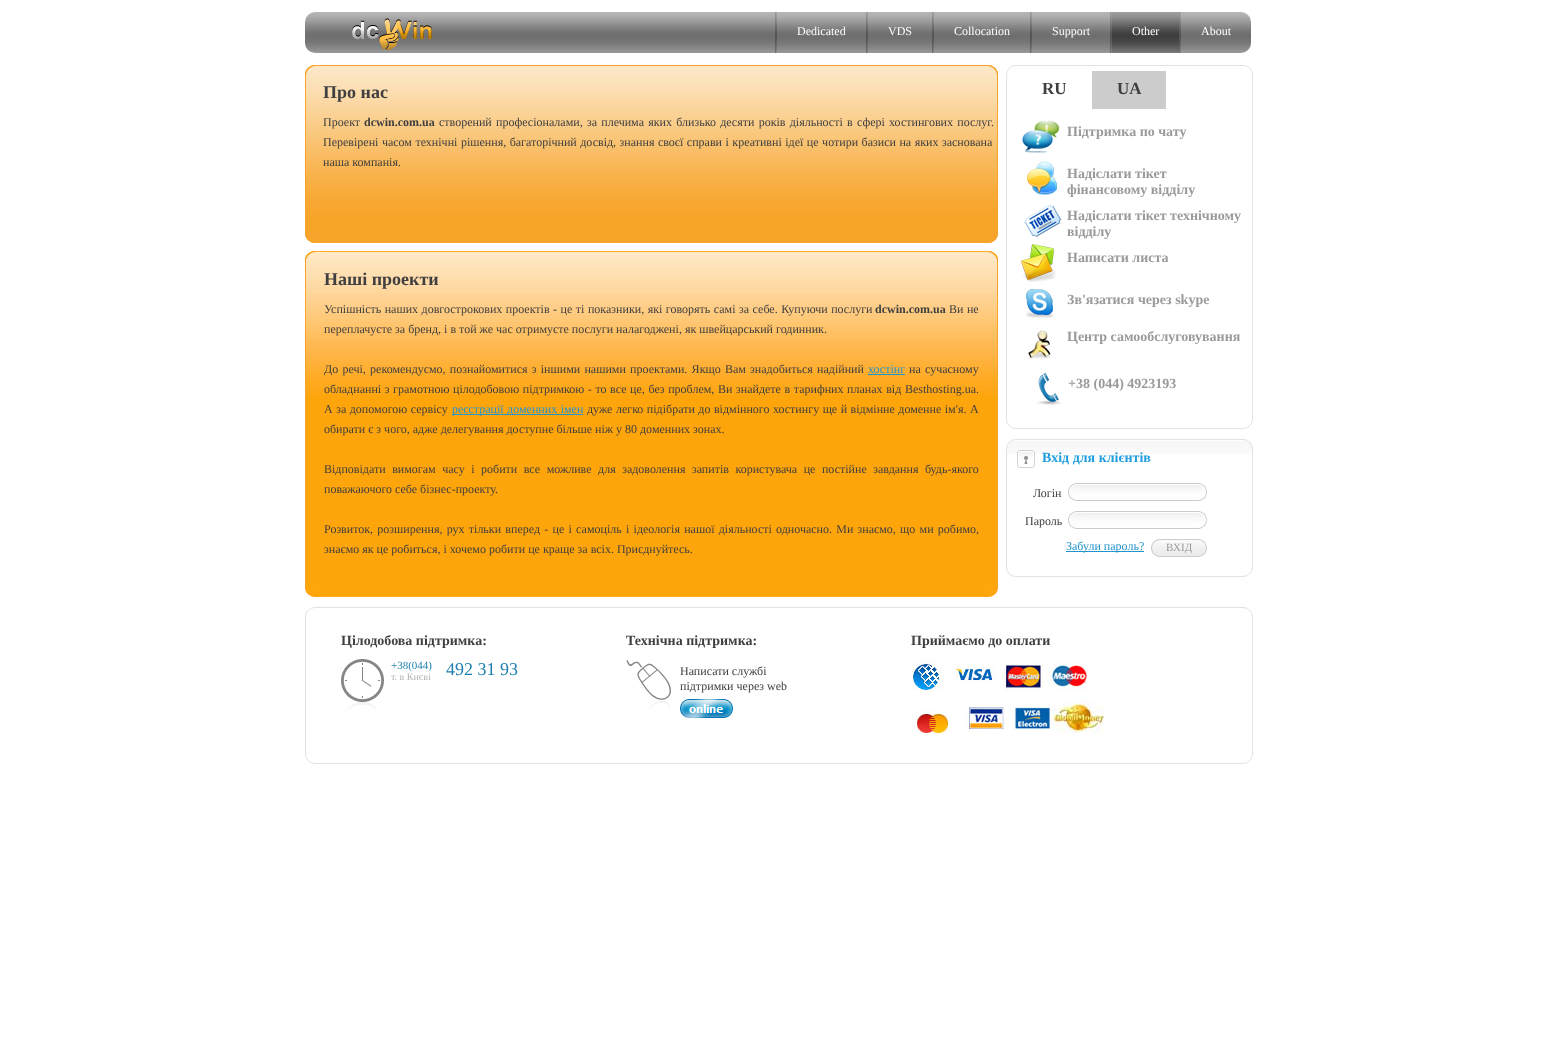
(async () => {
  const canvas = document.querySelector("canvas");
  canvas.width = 1556;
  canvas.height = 1050;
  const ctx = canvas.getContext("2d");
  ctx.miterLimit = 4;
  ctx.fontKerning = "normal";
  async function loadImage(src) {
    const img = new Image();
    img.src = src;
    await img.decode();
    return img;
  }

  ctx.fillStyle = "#ffffff";
  ctx.fillRect(0, 0, 1556, 1050);
  ctx.drawImage(await loadImage("img/1.png"), 305, 12, 946, 41);
  ctx.drawImage(await loadImage("img/2.png"), 352, 18, 80, 32);
  ctx.drawImage(await loadImage("img/3.png"), 775, 12, 2, 41);
  ctx.drawImage(await loadImage("img/3.png"), 866, 12, 2, 41);
  ctx.drawImage(await loadImage("img/3.png"), 932, 12, 2, 41);
  ctx.drawImage(await loadImage("img/3.png"), 1030, 12, 2, 41);
  ctx.drawImage(await loadImage("img/3.png"), 1110, 12, 2, 41);
  ctx.drawImage(await loadImage("img/4.png"), 1112, 12, 67, 41);
  ctx.drawImage(await loadImage("img/3.png"), 1179, 12, 2, 41);
  ctx.drawImage(await loadImage("img/5.png"), 305, 65, 693, 178);
  ctx.drawImage(await loadImage("img/6.png"), 305, 251, 693, 8);
  ctx.drawImage(await loadImage("img/7.png"), 305, 589, 693, 8);
  ctx.fillStyle = "#ffa50c";
  ctx.fillRect(306, 395, 691, 194);
  ctx.drawImage(await loadImage("img/8.png"), 306, 259, 691, 136);
  for (const [x, y, w, h, color] of [
    [997, 259, 1, 330, "#f7a42a"],
    [305, 259, 1, 330, "#f7a42a"],
    [868, 374, 37, 1, "#2494cc"],
    [452, 414, 131, 1, "#2494cc"],
  ]) {
    ctx.fillStyle = color;
    ctx.fillRect(x, y, w, h);
  }
  ctx.beginPath();
  ctx.roundRect(1006.5, 65.5, 246, 363, 9.5);
  ctx.strokeStyle = "#e2e2e2";
  ctx.stroke();
  ctx.fillStyle = "#cccccc";
  ctx.fillRect(1092, 71, 74, 38);
  ctx.drawImage(await loadImage("img/9.png"), 1022, 120, 38, 33);
  ctx.drawImage(await loadImage("img/10.png"), 1027, 161, 30, 34);
  ctx.drawImage(await loadImage("img/11.png"), 1024, 205, 38, 32);
  ctx.drawImage(await loadImage("img/12.png"), 1021, 244, 35, 38);
  ctx.drawImage(await loadImage("img/13.png"), 1026, 289, 28, 29);
  ctx.drawImage(await loadImage("img/14.png"), 1028, 330, 23, 29);
  ctx.drawImage(await loadImage("img/15.png"), 1037, 373, 25, 32);
  ctx.drawImage(await loadImage("img/16.png"), 1006, 441, 247, 13);
  ctx.beginPath();
  ctx.roundRect(1006.5, 439.5, 246, 137, 9.5);
  ctx.stroke();
  ctx.drawImage(await loadImage("img/17.png"), 1017, 450, 18, 18);
  ctx.drawImage(await loadImage("img/18.png"), 1068, 483, 139, 18);
  ctx.drawImage(await loadImage("img/18.png"), 1068, 511, 139, 18);
  ctx.fillStyle = "#2494cc";
  ctx.fillRect(1066, 551, 78, 1);
  ctx.drawImage(await loadImage("img/19.png"), 1151, 539, 56, 18);
  ctx.beginPath();
  ctx.roundRect(305.5, 607.5, 947, 156, 9.5);
  ctx.stroke();
  ctx.drawImage(await loadImage("img/20.png"), 341, 659, 43, 50);
  ctx.drawImage(await loadImage("img/21.png"), 626, 660, 45, 49);
  ctx.drawImage(await loadImage("img/22.png"), 680, 699, 53, 19);
  ctx.drawImage(await loadImage("img/23.png"), 911, 659, 32, 32);
  ctx.drawImage(await loadImage("img/24.png"), 954, 667, 42, 16);
  ctx.drawImage(await loadImage("img/25.png"), 1004, 659, 40, 32);
  ctx.drawImage(await loadImage("img/26.png"), 1046, 659, 43, 32);
  ctx.drawImage(await loadImage("img/27.png"), 911, 707, 40, 27);
  ctx.drawImage(await loadImage("img/28.png"), 965, 707, 40, 24);
  ctx.drawImage(await loadImage("img/29.png"), 1009, 707, 43, 24);
  ctx.drawImage(await loadImage("img/30.png"), 1052, 701, 52, 32);
  ctx.font = "12px Liberation Serif";
  ctx.fillStyle = "#ffffff";
  for (const [text, x, y] of [
    ["Dedicated", 797, 35],
    ["VDS", 888, 35],
    ["Collocation", 954, 35],
    ["Support", 1052, 35],
    ["Other", 1132, 35],
    ["About", 1201, 35],
  ]) {
    ctx.fillText(text, x, y);
  }
  ctx.font = "bold 18px Liberation Serif";
  ctx.fillStyle = "#3f3f3f";
  ctx.fillText("Про нас", 323, 98);
  ctx.font = "12px Liberation Serif";
  ctx.fillText("Проект", 323, 126);
  ctx.font = "bold 12px Liberation Serif";
  ctx.fillText("dcwin.com.ua", 364, 126);
  ctx.wordSpacing = "1.25px";
  ctx.font = "12px Liberation Serif";
  ctx.fillText("створений професіоналами, за плечима яких близько десяти років діяльності в сфері хостингових послуг.", 439, 126);
  ctx.wordSpacing = "0.5px";
  ctx.fillText("Перевірені часом технічні рішення, багаторічний досвід, знання своєї справи і креативні ідеї це чотири базиси на яких заснована", 323, 146);
  ctx.wordSpacing = "0px";
  ctx.fillText("наша компанія.", 323, 166);
  ctx.font = "bold 18px Liberation Serif";
  ctx.fillText("Наші проекти", 324, 285);
  ctx.wordSpacing = "0.5px";
  ctx.font = "12px Liberation Serif";
  ctx.fillText("Успішність наших довгострокових проектів - це ті показники, які говорять самі за себе. Купуючи послуги", 324, 313);
  ctx.wordSpacing = "0px";
  ctx.font = "bold 12px Liberation Serif";
  ctx.fillText("dcwin.com.ua", 875, 313);
  ctx.wordSpacing = "0.5px";
  ctx.font = "12px Liberation Serif";
  ctx.fillText("Ви не", 949, 313);
  ctx.wordSpacing = "0px";
  ctx.fillText("переплачуєте за бренд, і в той же час отримуєте послуги налагоджені, як швейцарський годинник.", 324, 333);
  ctx.wordSpacing = "1.25px";
  ctx.fillText("До речі, рекомендуємо, познайомитися з іншими нашими проектами. Якщо Вам знадобиться надійний", 324, 373);
  ctx.wordSpacing = "0px";
  ctx.fillStyle = "#2494cc";
  ctx.fillText("хостінг", 868, 373);
  ctx.wordSpacing = "1.25px";
  ctx.fillStyle = "#3f3f3f";
  ctx.fillText("на сучасному", 909, 373);
  ctx.wordSpacing = "0.6px";
  ctx.fillText("обладнанні з грамотною цілодобовою підтримкою - то все це, без проблем, Ви знайдете в тарифних планах від", 324, 393);
  ctx.wordSpacing = "0px";
  ctx.fillText("Besthosting.ua.", 905, 393);
  ctx.wordSpacing = "0.5px";
  ctx.fillText("А за допомогою сервісу", 324, 413);
  ctx.fillStyle = "#2494cc";
  ctx.fillText("реєстрації доменних імен", 452, 413);
  ctx.fillStyle = "#3f3f3f";
  ctx.fillText("дуже легко підібрати до відмінного хостингу ще й відмінне доменне ім'я. А", 587, 413);
  ctx.wordSpacing = "0px";
  ctx.fillText("обирати є з чого, адже делегування доступне більше ніж у 80 доменних зонах.", 324, 433);
  ctx.wordSpacing = "3.5px";
  ctx.fillText("Відповідати вимогам часу і робити все можливе для задоволення запитів користувача це постійне завдання будь-якого", 324, 473);
  ctx.wordSpacing = "0px";
  ctx.fillText("поважаючого себе бізнес-проекту.", 324, 493);
  ctx.wordSpacing = "1.25px";
  ctx.fillText("Розвиток, розширення, рух тільки вперед - це і самоціль і ідеологія нашої діяльності одночасно. Ми знаємо, що ми робимо,", 324, 533);
  ctx.wordSpacing = "0px";
  ctx.fillText("знаємо як це робиться, і хочемо робити це краще за всіх. Приєднуйтесь.", 324, 553);
  ctx.font = "bold 17px Liberation Serif";
  ctx.fillText("RU", 1042, 94);
  ctx.fillText("UA", 1117, 94);
  ctx.font = "bold 14px Liberation Serif";
  ctx.fillStyle = "#9a9a9a";
  for (const [text, x, y] of [
    ["Підтримка по чату", 1067, 136],
    ["Надіслати тікет", 1067, 178],
    ["фінансовому відділу", 1067, 194],
    ["Надіслати тікет технічному", 1067, 220],
    ["відділу", 1067, 236],
    ["Написати листа", 1067, 262],
    ["Зв'язатися через skype", 1067, 304],
    ["Центр самообслуговування", 1067, 341],
    ["+38 (044) 4923193", 1068, 388],
  ]) {
    ctx.fillText(text, x, y);
  }
  ctx.fillStyle = "#209edf";
  ctx.fillText("Вхід для клієнтів", 1042, 462);
  ctx.font = "12px Liberation Serif";
  ctx.fillStyle = "#3f3f3f";
  ctx.fillText("Логін", 1033, 497);
  ctx.fillText("Пароль", 1025, 525);
  ctx.fillStyle = "#2494cc";
  ctx.fillText("Забули пароль?", 1066, 550);
  ctx.font = "11px Liberation Serif";
  ctx.fillStyle = "#9a9a9a";
  ctx.fillText("ВХІД", 1166, 551);
  ctx.font = "bold 14px Liberation Serif";
  ctx.fillStyle = "#3f3f3f";
  ctx.fillText("Цілодобова підтримка:", 341, 645);
  ctx.font = "11px Liberation Serif";
  ctx.fillStyle = "#1f7faf";
  ctx.fillText("+38(044)", 391, 669);
  ctx.font = "10px Liberation Serif";
  ctx.fillStyle = "#b2b2b2";
  ctx.fillText("т. в Києві", 391, 680);
  ctx.font = "18px Liberation Serif";
  ctx.fillStyle = "#1f7faf";
  ctx.fillText("492 31 93", 446, 675);
  ctx.font = "bold 14px Liberation Serif";
  ctx.fillStyle = "#3f3f3f";
  ctx.fillText("Технічна підтримка:", 626, 645);
  ctx.font = "12px Liberation Serif";
  ctx.fillText("Написати службі", 680, 675);
  ctx.fillText("підтримки через web", 680, 690);
  ctx.font = "bold 14px Liberation Serif";
  ctx.fillText("Приймаємо до оплати", 911, 645);
})();
